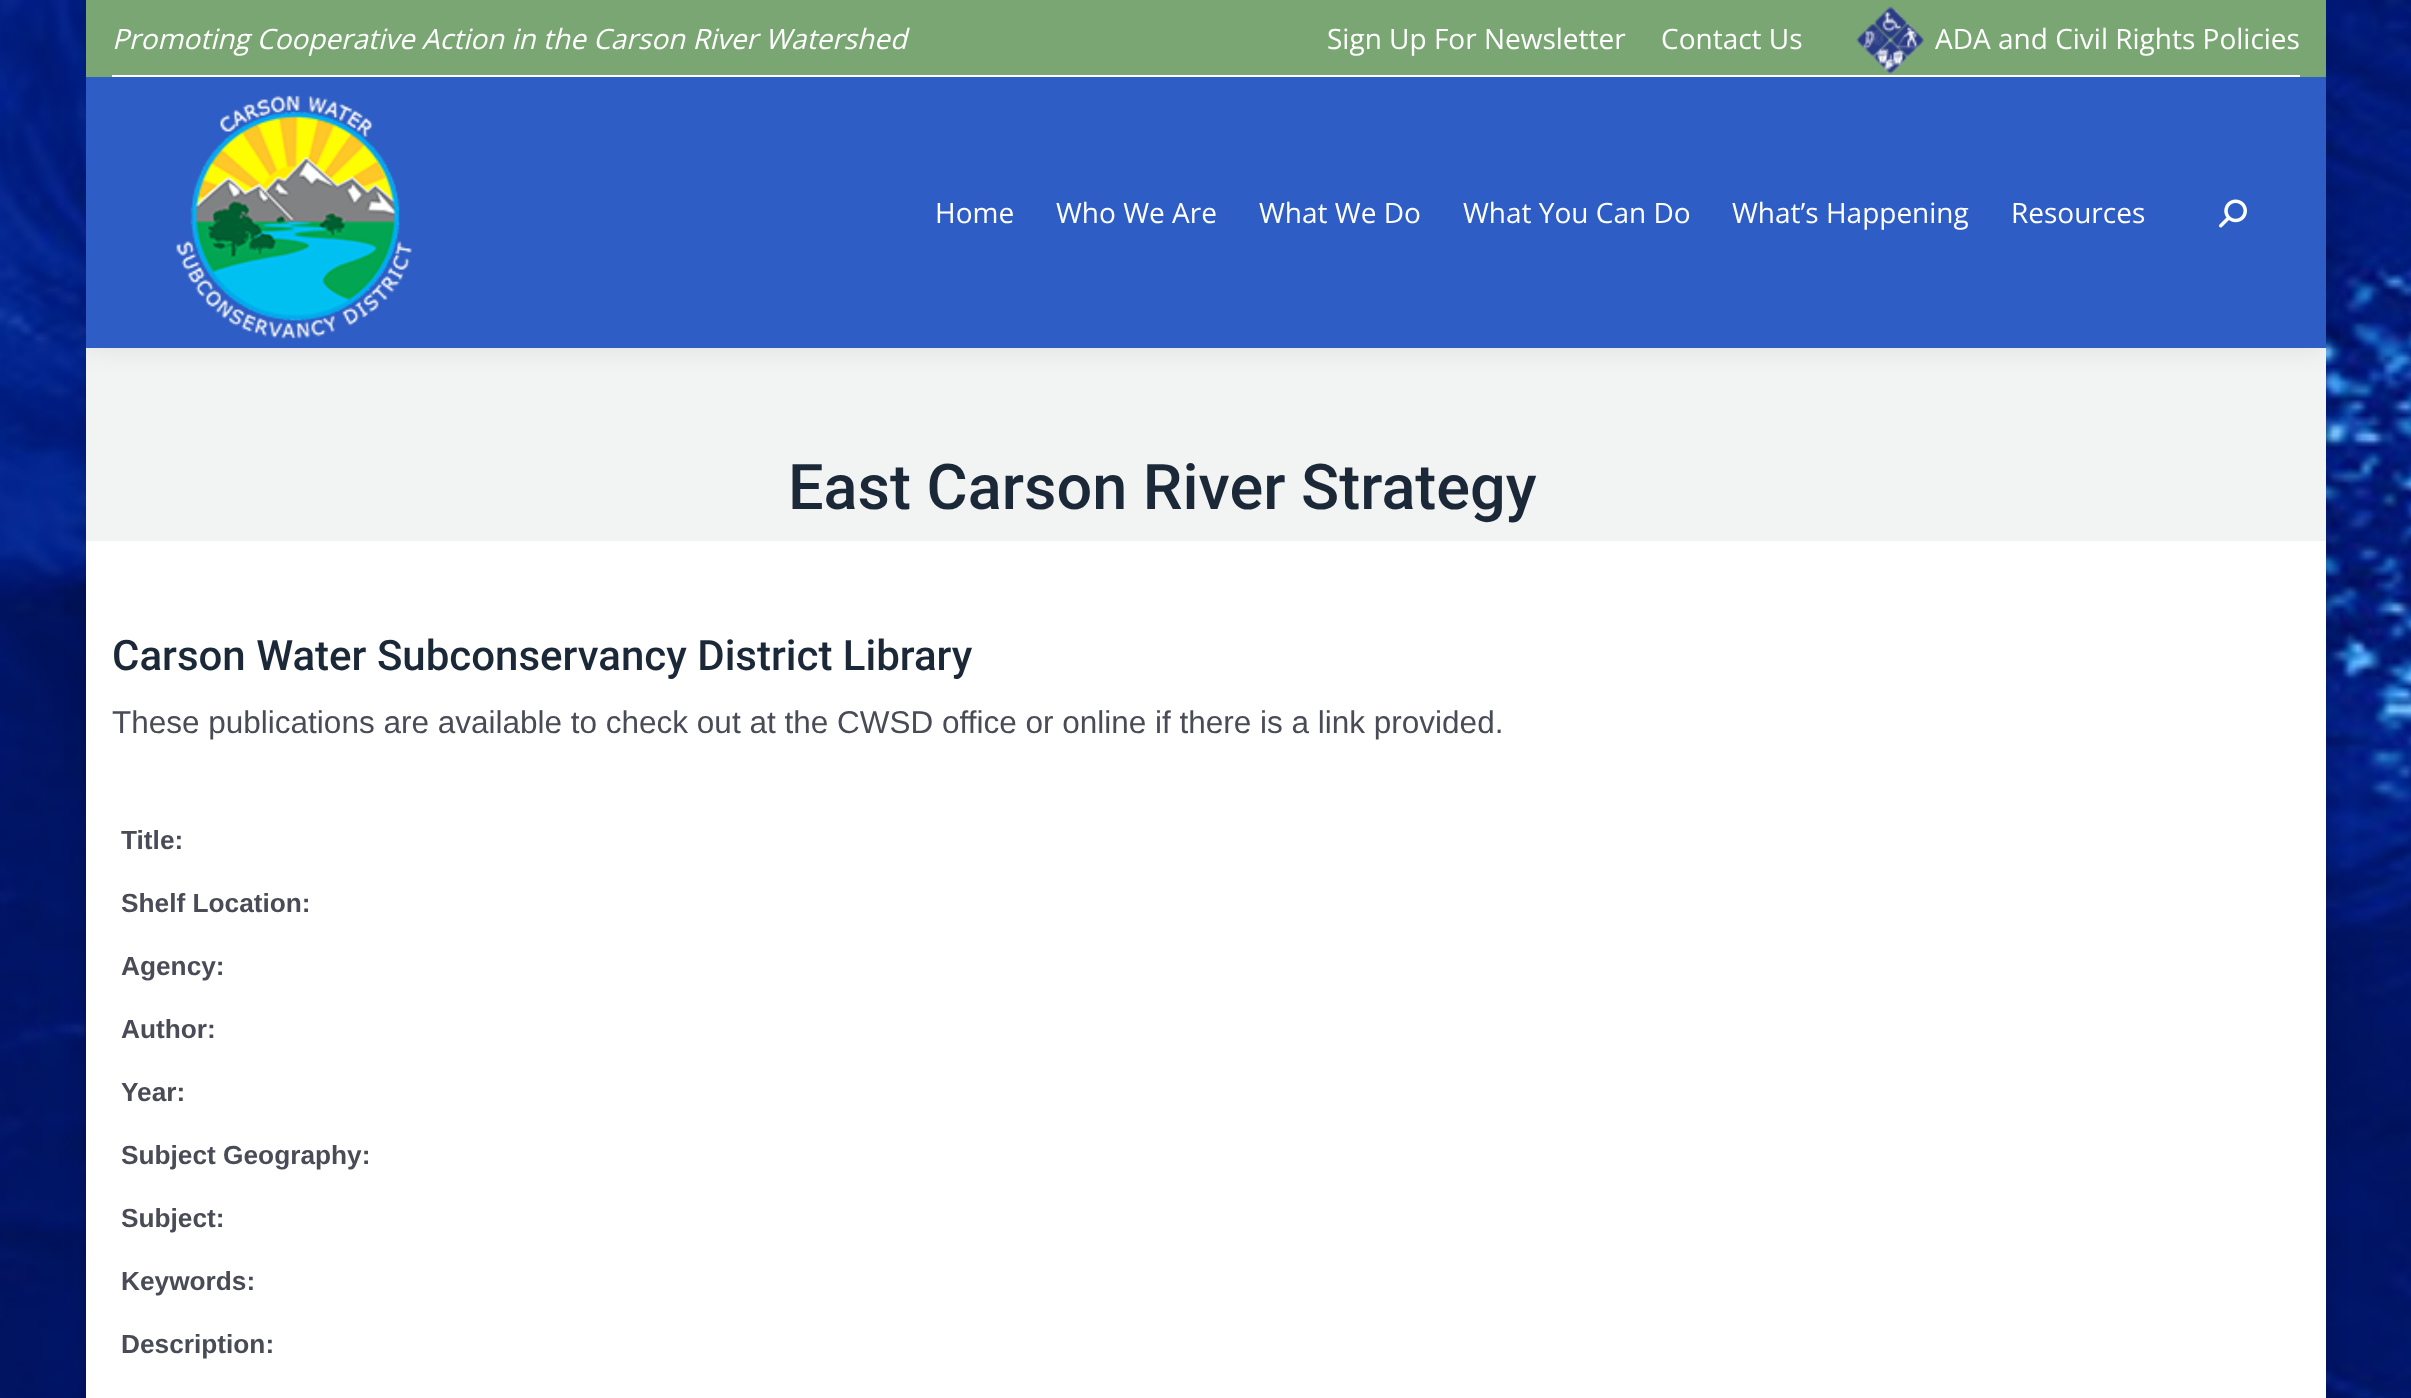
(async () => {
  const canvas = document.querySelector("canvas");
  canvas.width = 2411;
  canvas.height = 1398;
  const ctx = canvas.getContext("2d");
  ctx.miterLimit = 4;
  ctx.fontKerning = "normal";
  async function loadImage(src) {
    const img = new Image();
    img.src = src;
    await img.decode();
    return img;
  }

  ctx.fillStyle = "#ffffff";
  ctx.fillRect(0, 0, 2411, 1398);
  ctx.drawImage(await loadImage("img/1.png"), 0, 0, 2411, 1398);
  ctx.fillStyle = "rgba(0, 0, 0, 0.15)";
  ctx.filter = "blur(10.5px)";
  ctx.beginPath();
  ctx.rect(86, 0, 2240, 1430);
  ctx.fill();
  ctx.filter = "none";
  ctx.fillStyle = "#ffffff";
  ctx.fillRect(86, 541, 2240, 857);
  ctx.fillStyle = "#f2f3f3";
  ctx.fillRect(86, 348, 2240, 193);
  ctx.save();
  ctx.beginPath();
  ctx.rect(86, 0, 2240, 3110);
  ctx.clip();
  ctx.fillStyle = "rgba(0, 0, 0, 0.07)";
  ctx.filter = "blur(13px)";
  ctx.beginPath();
  ctx.rect(84, -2, 2244, 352);
  ctx.fill();
  ctx.filter = "none";
  ctx.restore();
  ctx.fillStyle = "#2e5dc5";
  ctx.fillRect(86, 77, 2240, 271);
  ctx.fillStyle = "#7aa673";
  ctx.fillRect(86, 0, 2240, 77);
  ctx.drawImage(await loadImage("img/2.png"), 1856, 6, 69, 68);
  ctx.fillStyle = "#ffffff";
  ctx.fillRect(112, 75, 2188, 2);
  ctx.drawImage(await loadImage("img/3.png"), 176, 95, 236, 244);
  ctx.drawImage(await loadImage("img/4.png"), 2219, 199, 28, 29);
  ctx.font = "italic 28px Open Sans";
  ctx.fillText("Promoting Cooperative Action in the Carson River Watershed", 112, 49);
  ctx.font = "28px Open Sans";
  for (const [text, x, y] of [
    ["Sign Up For Newsletter", 1327, 49],
    ["Contact Us", 1661, 49],
    ["ADA and Civil Rights Policies", 1935, 49],
    ["Home", 935, 223],
    ["Who We Are", 1056, 223],
    ["What We Do", 1259, 223],
    ["What You Can Do", 1463, 223],
    ["What’s Happening", 1732, 223],
    ["Resources", 2011, 223],
  ]) {
    ctx.fillText(text, x, y);
  }
  ctx.font = "500 63px Roboto";
  ctx.fillStyle = "#1b2838";
  ctx.fillText("East Carson River Strategy", 788, 509);
  ctx.font = "500 42px Roboto";
  ctx.fillText("Carson Water Subconservancy District Library", 112, 670);
  ctx.font = "31.5px Liberation Sans";
  ctx.fillStyle = "#494c56";
  ctx.fillText("These publications are available to check out at the CWSD office or online if there is a link provided.", 112, 733);
  ctx.font = "bold 26.25px Liberation Sans";
  for (const [text, x, y] of [
    ["Title:", 121, 849],
    ["Shelf Location:", 121, 912],
    ["Agency:", 121, 975],
    ["Author:", 121, 1038],
    ["Year:", 121, 1101],
    ["Subject Geography:", 121, 1164],
    ["Subject:", 121, 1227],
    ["Keywords:", 121, 1290],
    ["Description:", 121, 1353],
  ]) {
    ctx.fillText(text, x, y);
  }
})();
